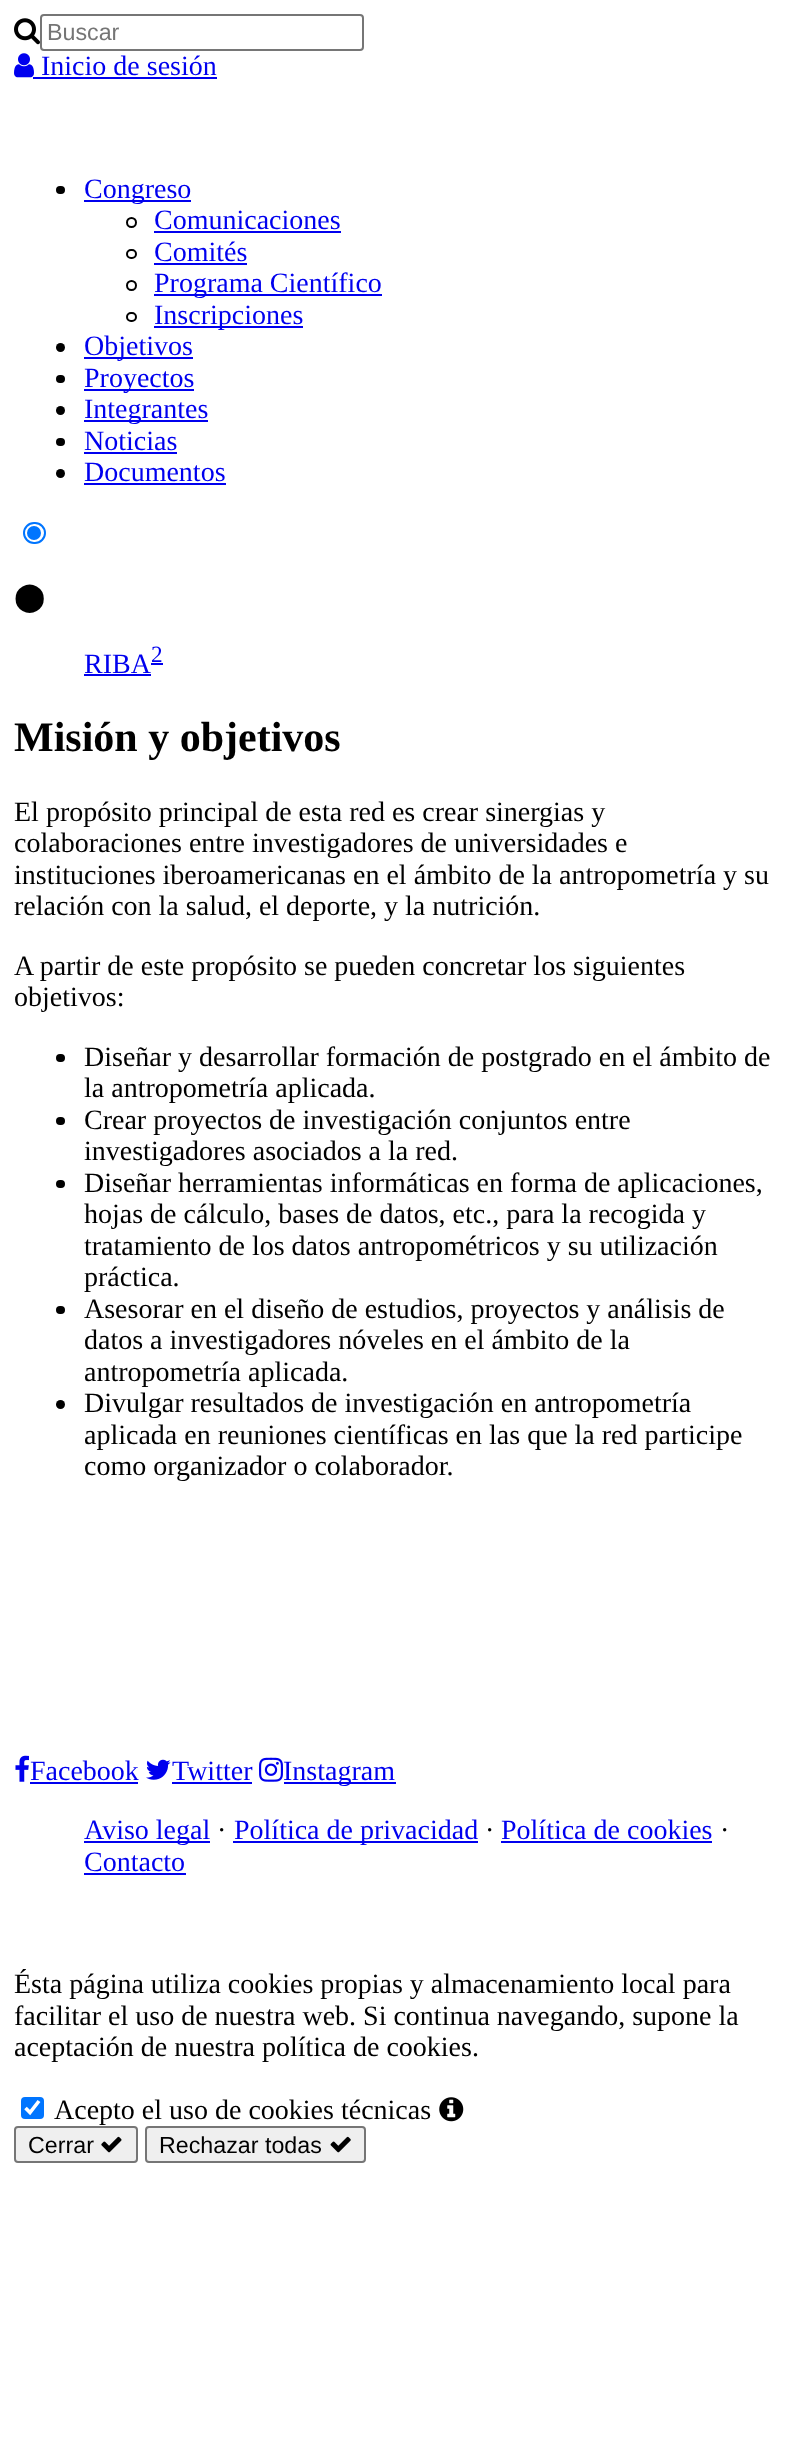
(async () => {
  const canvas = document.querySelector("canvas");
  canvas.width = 786;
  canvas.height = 2441;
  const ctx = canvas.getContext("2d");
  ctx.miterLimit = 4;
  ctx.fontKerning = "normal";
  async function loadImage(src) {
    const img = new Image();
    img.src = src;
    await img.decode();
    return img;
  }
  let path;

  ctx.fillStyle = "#ffffff";
  ctx.fillRect(0, 0, 786, 2441);
  ctx.drawImage(await loadImage("img/1.png"), 14, 18, 26, 27);
  ctx.beginPath();
  ctx.roundRect(41, 15, 322, 35, 3);
  ctx.strokeStyle = "#767676";
  ctx.lineWidth = 2;
  ctx.stroke();
  ctx.drawImage(await loadImage("img/2.png"), 14, 53, 20, 25);
  ctx.fillStyle = "#0000ee";
  ctx.fillRect(33, 77, 184, 2);
  ctx.fillStyle = "#000000";
  ctx.beginPath();
  ctx.roundRect(56, 186, 9, 8, 4);
  ctx.fill();
  ctx.fillStyle = "#0000ee";
  ctx.fillRect(84, 200, 107, 2);
  ctx.beginPath();
  ctx.arc(131.5, 222.5, 4.5, 0, Math.PI * 2);
  ctx.strokeStyle = "#000000";
  ctx.stroke();
  ctx.fillRect(154, 231, 187, 2);
  ctx.beginPath();
  ctx.roundRect(127, 250, 9, 8, 4);
  ctx.stroke();
  ctx.fillRect(154, 263, 93, 2);
  ctx.beginPath();
  ctx.arc(131.5, 285.5, 4.5, 0, Math.PI * 2);
  ctx.stroke();
  ctx.fillRect(154, 294, 228, 2);
  ctx.beginPath();
  ctx.roundRect(127, 313, 9, 8, 4);
  ctx.stroke();
  ctx.fillRect(154, 326, 149, 2);
  ctx.fillStyle = "#000000";
  ctx.beginPath();
  ctx.arc(60.5, 347.5, 4.5, 0, Math.PI * 2);
  ctx.fill();
  ctx.fillStyle = "#0000ee";
  ctx.fillRect(84, 357, 109, 2);
  ctx.fillStyle = "#000000";
  ctx.beginPath();
  ctx.roundRect(56, 375, 9, 8, 4);
  ctx.fill();
  ctx.fillStyle = "#0000ee";
  ctx.fillRect(84, 389, 110, 2);
  ctx.fillStyle = "#000000";
  ctx.beginPath();
  ctx.arc(60.5, 410.5, 4.5, 0, Math.PI * 2);
  ctx.fill();
  ctx.fillStyle = "#0000ee";
  ctx.fillRect(84, 420, 124, 2);
  ctx.fillStyle = "#000000";
  ctx.beginPath();
  ctx.roundRect(56, 438, 9, 8, 4);
  ctx.fill();
  ctx.fillStyle = "#0000ee";
  ctx.fillRect(84, 452, 93, 2);
  ctx.fillStyle = "#000000";
  ctx.beginPath();
  ctx.arc(60.5, 473.5, 4.5, 0, Math.PI * 2);
  ctx.fill();
  ctx.fillStyle = "#0000ee";
  ctx.fillRect(84, 483, 142, 2);
  ctx.beginPath();
  ctx.roundRect(24, 523, 21, 20, 10);
  ctx.strokeStyle = "#0075ff";
  ctx.stroke();
  ctx.fillStyle = "#0075ff";
  ctx.beginPath();
  ctx.arc(34, 533, 7, 0, Math.PI * 2);
  ctx.fill();
  ctx.fillStyle = "#0000ee";
  ctx.fillRect(84, 674, 67, 2);
  ctx.fillRect(151, 663, 12, 2);
  ctx.fillStyle = "#000000";
  ctx.beginPath();
  ctx.roundRect(56, 1054, 9, 8, 4);
  ctx.fill();
  ctx.beginPath();
  ctx.roundRect(56, 1117, 9, 8, 4);
  ctx.fill();
  ctx.beginPath();
  ctx.roundRect(56, 1180, 9, 8, 4);
  ctx.fill();
  ctx.beginPath();
  ctx.roundRect(56, 1306, 9, 8, 4);
  ctx.fill();
  ctx.beginPath();
  ctx.arc(60.5, 1404.5, 4.5, 0, Math.PI * 2);
  ctx.fill();
  ctx.drawImage(await loadImage("img/3.png"), 15, 1755, 14, 27);
  ctx.fillStyle = "#0000ee";
  ctx.fillRect(30, 1782, 108, 2);
  ctx.drawImage(await loadImage("img/4.png"), 146, 1759, 25, 21);
  ctx.fillRect(172, 1782, 80, 2);
  ctx.drawImage(await loadImage("img/5.png"), 259, 1757, 24, 25);
  for (const [x, y, w, h, color] of [
    [284, 1782, 112, 2, "#0000ee"],
    [84, 1841, 126, 2, "#0000ee"],
    [233, 1841, 245, 2, "#0000ee"],
    [501, 1841, 211, 2, "#0000ee"],
    [84, 1873, 102, 2, "#0000ee"],
  ]) {
    ctx.fillStyle = color;
    ctx.fillRect(x, y, w, h);
  }
  ctx.fillStyle = "#0075ff";
  ctx.beginPath();
  ctx.roundRect(21, 2097, 23, 22, 4);
  ctx.fill();
  path = new Path2D("M25.5 2108L30 2112.5L39 2101");
  ctx.strokeStyle = "#ffffff";
  ctx.lineWidth = 3.6;
  ctx.stroke(path);
  ctx.drawImage(await loadImage("img/6.png"), 439, 2097, 25, 25);
  ctx.fillStyle = "#efefef";
  ctx.beginPath();
  ctx.roundRect(15, 2127, 122, 35, 3);
  ctx.fill();
  ctx.strokeStyle = "#767676";
  ctx.lineWidth = 2;
  ctx.stroke();
  ctx.drawImage(await loadImage("img/7.png"), 101, 2136, 21, 17);
  ctx.beginPath();
  ctx.roundRect(146, 2127, 219, 35, 3);
  ctx.fill();
  ctx.stroke();
  ctx.drawImage(await loadImage("img/8.png"), 330, 2136, 21, 17);
  ctx.font = "23.25px Liberation Sans";
  ctx.fillStyle = "#757575";
  ctx.fillText("Buscar", 47, 40);
  ctx.font = "28px Liberation Serif";
  ctx.fillStyle = "#0000ee";
  for (const [text, x, y] of [
    ["Inicio de sesión", 41, 75],
    ["Congreso", 84, 198],
    ["Comunicaciones", 154, 229],
    ["Comités", 154, 261],
    ["Programa Científico", 154, 292],
    ["Inscripciones", 154, 324],
    ["Objetivos", 84, 355],
    ["Proyectos", 84, 387],
    ["Integrantes", 84, 418],
    ["Noticias", 84, 450],
    ["Documentos", 84, 481],
  ]) {
    ctx.fillText(text, x, y);
  }
  ctx.font = "28px DejaVu Sans";
  ctx.fillStyle = "#000000";
  ctx.fillText("⬤", 14, 606);
  ctx.font = "28px Liberation Serif";
  ctx.fillStyle = "#0000ee";
  ctx.fillText("RIBA", 84, 673);
  ctx.font = "23.25px Liberation Serif";
  ctx.fillText("2", 151, 662);
  ctx.font = "bold 42px Liberation Serif";
  ctx.fillStyle = "#000000";
  ctx.fillText("Misión y objetivos", 14, 751);
  ctx.font = "28px Liberation Serif";
  for (const [text, x, y] of [
    ["El propósito principal de esta red es crear sinergias y", 14, 821],
    ["colaboraciones entre investigadores de universidades e", 14, 852],
    ["instituciones iberoamericanas en el ámbito de la antropometría y su", 14, 884],
    ["relación con la salud, el deporte, y la nutrición.", 14, 915],
    ["A partir de este propósito se pueden concretar los siguientes", 14, 975],
    ["objetivos:", 14, 1006],
    ["Diseñar y desarrollar formación de postgrado en el ámbito de", 84, 1066],
    ["la antropometría aplicada.", 84, 1097],
    ["Crear proyectos de investigación conjuntos entre", 84, 1129],
    ["investigadores asociados a la red.", 84, 1160],
    ["Diseñar herramientas informáticas en forma de aplicaciones,", 84, 1192],
    ["hojas de cálculo, bases de datos, etc., para la recogida y", 84, 1223],
    ["tratamiento de los datos antropométricos y su utilización", 84, 1255],
    ["práctica.", 84, 1286],
    ["Asesorar en el diseño de estudios, proyectos y análisis de", 84, 1318],
    ["datos a investigadores nóveles en el ámbito de la", 84, 1349],
    ["antropometría aplicada.", 84, 1381],
    ["Divulgar resultados de investigación en antropometría", 84, 1412],
    ["aplicada en reuniones científicas en las que la red participe", 84, 1444],
    ["como organizador o colaborador.", 84, 1475],
  ]) {
    ctx.fillText(text, x, y);
  }
  ctx.fillStyle = "#0000ee";
  for (const [text, x, y] of [
    ["Facebook", 30, 1780],
    ["Twitter", 172, 1780],
    ["Instagram", 283, 1780],
    ["Aviso legal", 84, 1839],
  ]) {
    ctx.fillText(text, x, y);
  }
  ctx.fillStyle = "#000000";
  ctx.fillText("·", 217, 1839);
  ctx.fillStyle = "#0000ee";
  ctx.fillText("Política de privacidad", 234, 1839);
  ctx.fillStyle = "#000000";
  ctx.fillText("·", 485, 1839);
  ctx.fillStyle = "#0000ee";
  ctx.fillText("Política de cookies", 501, 1839);
  ctx.fillStyle = "#000000";
  ctx.fillText("·", 720, 1839);
  ctx.fillStyle = "#0000ee";
  ctx.fillText("Contacto", 84, 1871);
  ctx.fillStyle = "#000000";
  for (const [text, x, y] of [
    ["Ésta página utiliza cookies propias y almacenamiento local para", 14, 1993],
    ["facilitar el uso de nuestra web. Si continua navegando, supone la", 14, 2025],
    ["aceptación de nuestra política de cookies.", 14, 2056],
    ["Acepto el uso de cookies técnicas", 54, 2119],
  ]) {
    ctx.fillText(text, x, y);
  }
  ctx.font = "23.25px Liberation Sans";
  ctx.fillText("Cerrar", 28, 2153);
  ctx.fillText("Rechazar todas", 159, 2153);
})();
